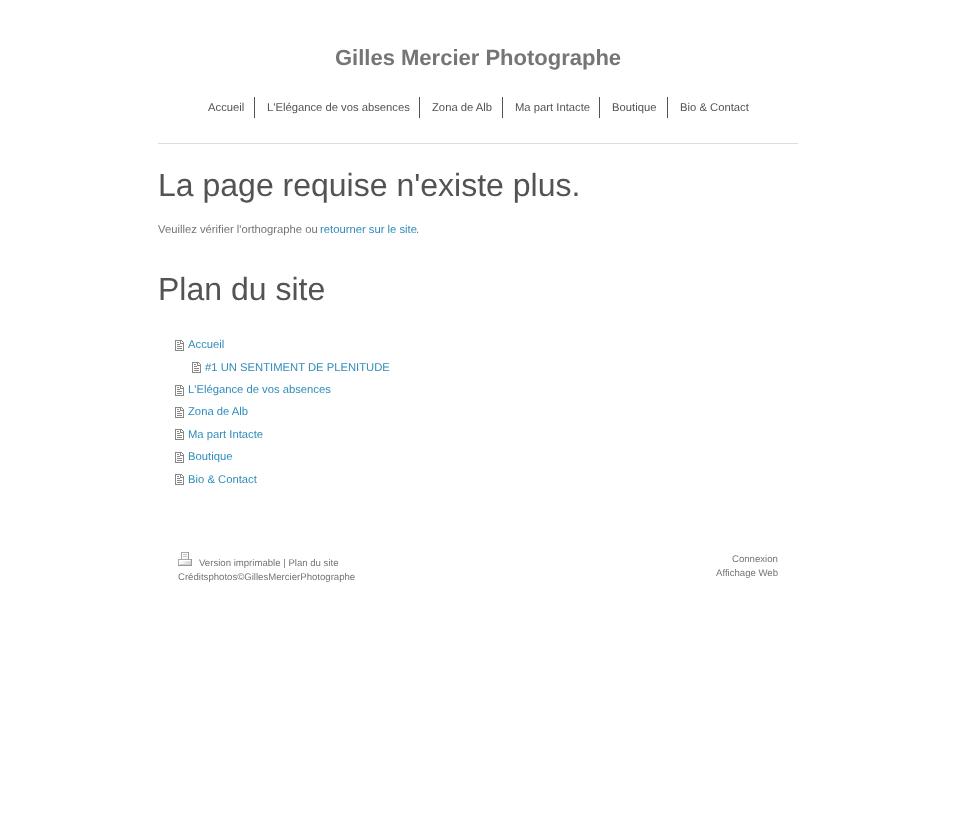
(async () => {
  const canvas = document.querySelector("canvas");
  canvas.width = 956;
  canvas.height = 823;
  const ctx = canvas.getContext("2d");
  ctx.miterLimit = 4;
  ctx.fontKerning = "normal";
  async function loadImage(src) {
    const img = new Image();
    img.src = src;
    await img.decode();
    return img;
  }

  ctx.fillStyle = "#ffffff";
  ctx.fillRect(0, 0, 956, 823);
  for (const [x, y, w, h, color] of [
    [158, 143, 640, 1, "#dddddd"],
    [254, 97, 1, 21, "#535353"],
    [419, 97, 1, 21, "#535353"],
    [502, 97, 1, 21, "#535353"],
    [599, 97, 1, 21, "#535353"],
    [667, 97, 1, 21, "#535353"],
  ]) {
    ctx.fillStyle = color;
    ctx.fillRect(x, y, w, h);
  }
  ctx.drawImage(await loadImage("img/1.png"), 175, 340, 9, 11);
  ctx.drawImage(await loadImage("img/1.png"), 192, 362, 9, 11);
  ctx.drawImage(await loadImage("img/1.png"), 175, 385, 9, 11);
  ctx.drawImage(await loadImage("img/1.png"), 175, 407, 9, 11);
  ctx.drawImage(await loadImage("img/1.png"), 175, 429, 9, 11);
  ctx.drawImage(await loadImage("img/1.png"), 175, 452, 9, 11);
  ctx.drawImage(await loadImage("img/1.png"), 175, 474, 9, 11);
  ctx.drawImage(await loadImage("img/2.png"), 178, 552, 14, 14);
  ctx.font = "bold 22px Liberation Sans";
  ctx.fillStyle = "#757575";
  ctx.fillText("Gilles Mercier Photographe", 335, 65);
  ctx.font = "11.25px Liberation Sans";
  ctx.fillStyle = "#535353";
  for (const [text, x, y] of [
    ["Accueil", 208, 111],
    ["L'Elégance de vos absences", 267, 111],
    ["Zona de Alb", 432, 111],
    ["Ma part Intacte", 515, 111],
    ["Boutique", 612, 111],
    ["Bio & Contact", 680, 111],
  ]) {
    ctx.fillText(text, x, y);
  }
  ctx.font = "32px Liberation Sans";
  ctx.fillText("La page requise n'existe plus.", 158, 196);
  ctx.font = "11.25px Liberation Sans";
  ctx.fillStyle = "#757575";
  ctx.fillText("Veuillez vérifier l'orthographe ou", 158, 233);
  ctx.fillStyle = "#308cba";
  ctx.fillText("retourner sur le site", 320, 233);
  ctx.fillStyle = "#757575";
  ctx.fillText(".", 416, 233);
  ctx.font = "32px Liberation Sans";
  ctx.fillStyle = "#535353";
  ctx.fillText("Plan du site", 158, 300);
  ctx.font = "11.25px Liberation Sans";
  ctx.fillStyle = "#308cba";
  for (const [text, x, y] of [
    ["Accueil", 188, 348],
    ["#1 UN SENTIMENT DE PLENITUDE", 205, 371],
    ["L'Elégance de vos absences", 188, 393],
    ["Zona de Alb", 188, 415],
    ["Ma part Intacte", 188, 438],
    ["Boutique", 188, 460],
    ["Bio & Contact", 188, 483],
  ]) {
    ctx.fillText(text, x, y);
  }
  ctx.font = "9.6px Liberation Sans";
  ctx.fillStyle = "#757575";
  for (const [text, x, y] of [
    ["Version imprimable | Plan du site", 199, 566],
    ["Créditsphotos©GillesMercierPhotographe", 178, 580],
    ["Connexion", 732, 562],
    ["Affichage Web", 716, 576],
  ]) {
    ctx.fillText(text, x, y);
  }
})();
